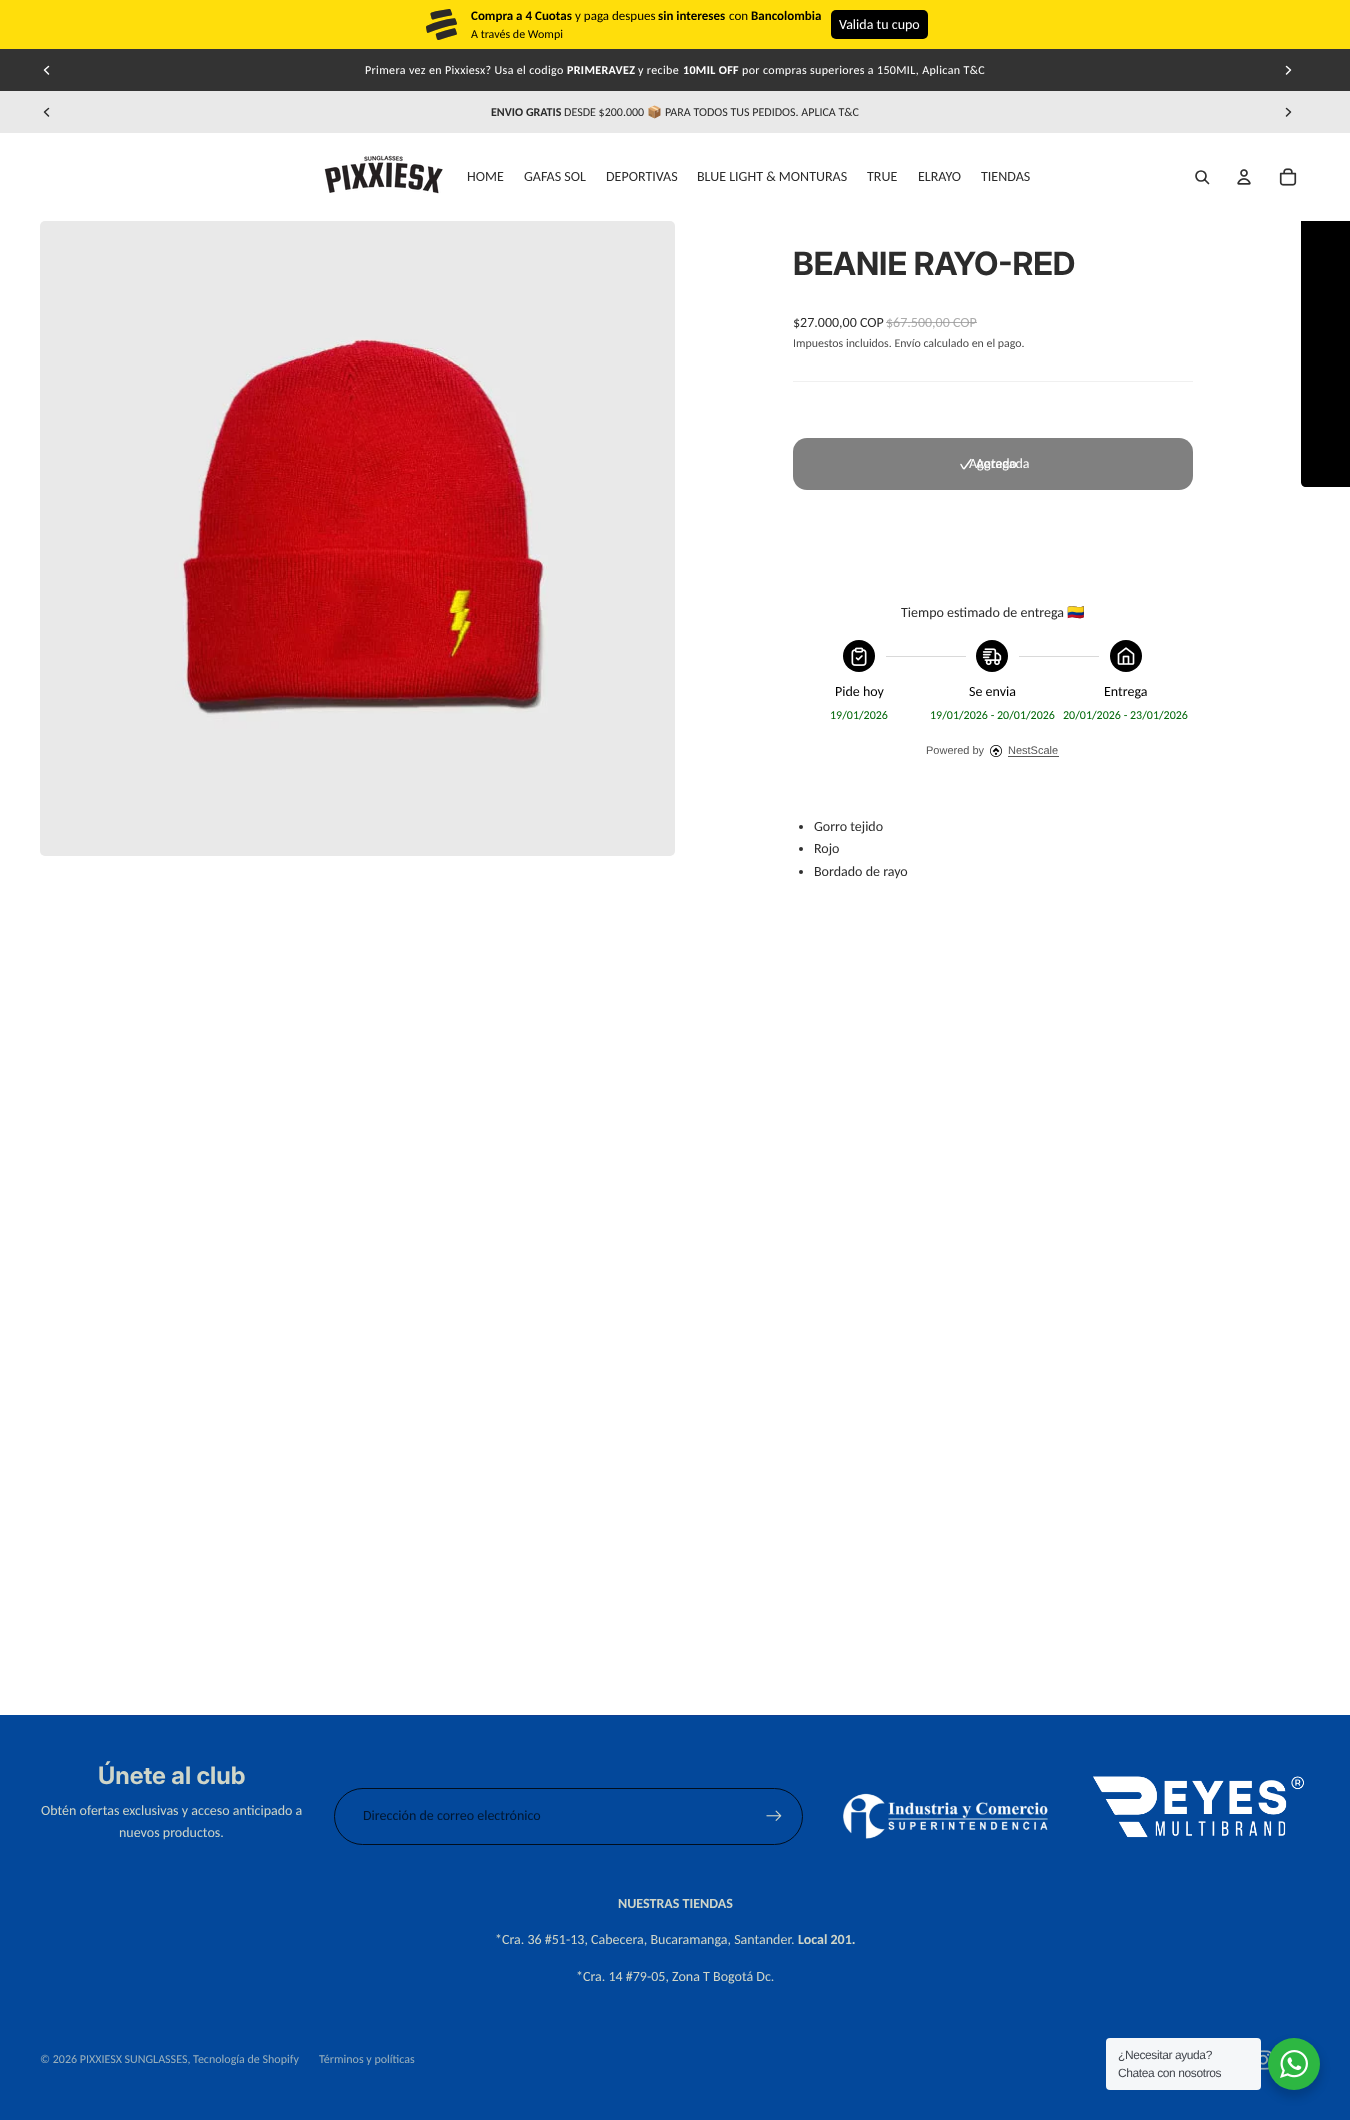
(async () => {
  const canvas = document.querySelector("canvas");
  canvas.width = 1350;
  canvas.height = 2120;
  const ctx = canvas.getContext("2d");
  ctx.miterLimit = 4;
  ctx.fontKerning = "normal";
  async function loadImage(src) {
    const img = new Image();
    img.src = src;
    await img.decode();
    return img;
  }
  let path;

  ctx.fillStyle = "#ffffff";
  ctx.fillRect(0, 0, 1350, 2120);
  ctx.fillStyle = "#ffde0b";
  ctx.fillRect(0, 0, 1350, 49);
  ctx.drawImage(await loadImage("img/1.png"), 426, 9, 31, 31);
  ctx.fillStyle = "#000000";
  ctx.beginPath();
  ctx.roundRect(831, 10, 97, 29, 5);
  ctx.fill();
  ctx.fillStyle = "#333333";
  ctx.fillRect(0, 49, 1350, 42);
  path = new Path2D("M48.5 66.5L44.5 70L48.5 74");
  ctx.strokeStyle = "#ffffff";
  ctx.lineWidth = 1.5;
  ctx.lineCap = "round";
  ctx.lineJoin = "round";
  ctx.stroke(path);
  path = new Path2D("M1286.5 66.5L1290.5 70L1286.5 74");
  ctx.stroke(path);
  ctx.fillStyle = "#e9e9e9";
  ctx.fillRect(0, 91, 1350, 42);
  path = new Path2D("M48.5 108.5L44.5 112L48.5 116");
  ctx.strokeStyle = "#2c2c2c";
  ctx.stroke(path);
  path = new Path2D("M1286.5 108.5L1290.5 112L1286.5 116");
  ctx.stroke(path);
  ctx.fillStyle = "#000000";
  path = new Path2D("M1301 482V154C1301 151 1303 149 1306 149H1350V487H1306C1303 487 1301 485 1301 482Z");
  ctx.fill(path);
  ctx.fillStyle = "#ffffff";
  ctx.fillRect(1301, 149, 49, 72);
  ctx.drawImage(await loadImage("img/2.png"), 324, 155, 119, 39);
  ctx.beginPath();
  ctx.arc(1201, 176, 5, 0, Math.PI * 2);
  ctx.strokeStyle = "#303030";
  ctx.lineWidth = 1.7;
  ctx.stroke();
  path = new Path2D("M1205 180L1208.5 183.5");
  ctx.strokeStyle = "rgba(0, 0, 0, 0.81)";
  ctx.stroke(path);
  ctx.drawImage(await loadImage("img/3.png"), 1237, 169, 14, 16);
  ctx.drawImage(await loadImage("img/4.png"), 1279, 168, 18, 18);
  ctx.drawImage(await loadImage("img/5.png"), 40, 221, 635, 635);
  ctx.fillStyle = "#f0f0f0";
  path = new Path2D("M1193 381V382L1192 381Z");
  ctx.fill(path);
  ctx.fillStyle = "rgba(0, 0, 0, 0.06)";
  path = new Path2D("M1193 382H793V381H1192Z");
  ctx.fill(path);
  ctx.fillStyle = "#808080";
  ctx.beginPath();
  ctx.roundRect(793, 438, 400, 52, 14);
  ctx.fill();
  path = new Path2D("M961 464.5L963 468C964.5 469.5 964 469 965.5 467L971 459.5");
  ctx.strokeStyle = "#ffffff";
  ctx.lineWidth = 1.5;
  ctx.stroke(path);
  ctx.fillStyle = "#000000";
  ctx.beginPath();
  ctx.arc(859, 656, 16, 0, Math.PI * 2);
  ctx.fill();
  ctx.drawImage(await loadImage("img/6.png"), 851, 647, 16, 19);
  ctx.fillStyle = "#d9d9d9";
  ctx.fillRect(886, 656, 80, 1);
  ctx.fillStyle = "#000000";
  ctx.beginPath();
  ctx.arc(992, 656, 16, 0, Math.PI * 2);
  ctx.fill();
  ctx.drawImage(await loadImage("img/7.png"), 982, 648, 20, 18);
  ctx.fillStyle = "#d9d9d9";
  ctx.fillRect(1019, 656, 80, 1);
  ctx.fillStyle = "#000000";
  ctx.beginPath();
  ctx.arc(1126, 656, 16, 0, Math.PI * 2);
  ctx.fill();
  ctx.drawImage(await loadImage("img/8.png"), 1117, 647, 18, 18);
  ctx.drawImage(await loadImage("img/9.png"), 990, 745, 12, 12);
  ctx.fillStyle = "#555555";
  ctx.fillRect(1008, 756, 51, 1);
  ctx.fillStyle = "#303030";
  ctx.beginPath();
  ctx.arc(801, 827, 2, 0, Math.PI * 2);
  ctx.fill();
  ctx.beginPath();
  ctx.arc(801, 849, 2, 0, Math.PI * 2);
  ctx.fill();
  ctx.beginPath();
  ctx.arc(801, 872, 2, 0, Math.PI * 2);
  ctx.fill();
  ctx.fillStyle = "#03489b";
  ctx.fillRect(0, 1715, 1350, 405);
  ctx.fillStyle = "#103f91";
  path = new Path2D("M1310 1715V1716L1309 1715Z");
  ctx.fill(path);
  ctx.fillStyle = "rgba(29, 54, 134, 0.5)";
  path = new Path2D("M1310 1716H40V1715H1309Z");
  ctx.fill(path);
  ctx.beginPath();
  ctx.roundRect(334.5, 1788.5, 468, 56, 28);
  ctx.strokeStyle = "#010e1d";
  ctx.lineWidth = 1;
  ctx.lineJoin = "miter";
  ctx.stroke();
  ctx.drawImage(await loadImage("img/10.png"), 766, 1810, 16, 11);
  ctx.drawImage(await loadImage("img/11.png"), 843, 1793, 205, 46);
  ctx.drawImage(await loadImage("img/12.png"), 1093, 1776, 211, 62);
  ctx.drawImage(await loadImage("img/13.png"), 1261, 2050, 10, 20);
  ctx.fillStyle = "rgba(0, 0, 0, 0.14)";
  ctx.filter = "blur(4px)";
  ctx.beginPath();
  ctx.roundRect(1266, 2042, 56, 56, 28);
  ctx.fill();
  ctx.filter = "none";
  ctx.fillStyle = "#f5f7f9";
  ctx.beginPath();
  ctx.roundRect(1106, 2038, 155, 52, 4);
  ctx.fill();
  ctx.fillStyle = "#2db742";
  ctx.beginPath();
  ctx.arc(1294, 2064, 26, 0, Math.PI * 2);
  ctx.fill();
  ctx.drawImage(await loadImage("img/14.png"), 1280, 2050, 28, 28);
  ctx.font = "bold 13px Carlito";
  ctx.fillStyle = "#000000";
  ctx.fillText("Compra a 4 Cuotas", 471, 20);
  ctx.font = "13px Carlito";
  ctx.fillText("y paga despues", 575, 20);
  ctx.font = "bold 13px Carlito";
  ctx.fillText("sin intereses", 658, 20);
  ctx.font = "13px Carlito";
  ctx.fillText("con", 729, 20);
  ctx.font = "bold 13px Carlito";
  ctx.fillText("Bancolombia", 751, 20);
  ctx.font = "12px Carlito";
  ctx.fillText("A través de Wompi", 471, 38);
  ctx.font = "14px Carlito";
  ctx.fillStyle = "#ffffff";
  ctx.fillText("Valida tu cupo", 839, 29);
  ctx.letterSpacing = "0.35px";
  ctx.font = "12px Carlito";
  ctx.fillText("Primera vez en Pixxiesx? Usa el codigo", 365, 74);
  ctx.font = "bold 12px Carlito";
  ctx.fillText("PRIMERAVEZ", 567, 74);
  ctx.font = "12px Carlito";
  ctx.fillText("y recibe", 638, 74);
  ctx.font = "bold 12px Carlito";
  ctx.fillText("10MIL OFF", 683, 74);
  ctx.font = "12px Carlito";
  ctx.fillText("por compras superiores a 150MIL, Aplican T&C", 742, 74);
  ctx.letterSpacing = "0px";
  ctx.font = "bold 12px Carlito";
  ctx.fillStyle = "#2c2c2c";
  ctx.fillText("ENVIO GRATIS", 491, 116);
  ctx.font = "12px Carlito";
  ctx.fillText("DESDE $200.000", 564, 116);
  ctx.font = "12px Noto Color Emoji";
  ctx.fillText("📦", 647, 116);
  ctx.font = "12px Carlito";
  ctx.fillText("PARA TODOS TUS PEDIDOS. APLICA T&C", 665, 116);
  ctx.font = "14px Carlito";
  for (const [text, x, y] of [
    ["HOME", 467, 181],
    ["GAFAS SOL", 524, 181],
    ["DEPORTIVAS", 606, 181],
    ["BLUE LIGHT & MONTURAS", 697, 181],
    ["TRUE", 867, 181],
    ["ELRAYO", 918, 181],
    ["TIENDAS", 981, 181],
  ]) {
    ctx.fillText(text, x, y);
  }
  ctx.font = "bold 32px 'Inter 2'";
  ctx.fillText("BEANIE RAYO-RED", 793, 275);
  ctx.font = "14px Carlito";
  ctx.fillText("$27.000,00 COP", 793, 327);
  ctx.fillStyle = "#acacac";
  ctx.fillText("$67.500,00 COP", 886, 327);
  ctx.fillStyle = "rgba(153, 153, 153, 0.81)";
  ctx.fillRect(886, 322, 91, 1);
  ctx.font = "11.9px Carlito";
  ctx.fillStyle = "#4d4d4d";
  ctx.fillText("Impuestos incluidos. Envío calculado en el pago.", 793, 347);
  ctx.font = "14px Carlito";
  ctx.fillStyle = "#ffffff";
  ctx.fillText("Agotado", 969, 468);
  ctx.fillText("Agregada", 976, 468);
  ctx.fillStyle = "#2c2c2c";
  ctx.fillText("Tiempo estimado de entrega", 901, 617);
  ctx.font = "14px Noto Color Emoji";
  ctx.fillStyle = "#4d5156";
  ctx.fillText("🇨🇴", 1067, 617);
  ctx.font = "14px Carlito";
  ctx.fillStyle = "#000000";
  ctx.fillText("Pide hoy", 835, 696);
  ctx.font = "12px Carlito";
  ctx.fillStyle = "#026909";
  ctx.fillText("19/01/2026", 830, 719);
  ctx.font = "14px Carlito";
  ctx.fillStyle = "#000000";
  ctx.fillText("Se envia", 969, 696);
  ctx.font = "12px Carlito";
  ctx.fillStyle = "#026909";
  ctx.fillText("19/01/2026 - 20/01/2026", 930, 719);
  ctx.font = "14px Carlito";
  ctx.fillStyle = "#000000";
  ctx.fillText("Entrega", 1104, 696);
  ctx.font = "12px Carlito";
  ctx.fillStyle = "#026909";
  ctx.fillText("20/01/2026 - 23/01/2026", 1063, 719);
  ctx.font = "11px Liberation Sans";
  ctx.fillStyle = "#555555";
  ctx.fillText("Powered by", 926, 754);
  ctx.fillText("NestScale", 1008, 754);
  ctx.font = "14px Carlito";
  ctx.fillStyle = "#2c2c2c";
  for (const [text, x, y] of [
    ["Gorro tejido", 814, 831],
    ["Rojo", 814, 853],
    ["Bordado de rayo", 814, 876],
  ]) {
    ctx.fillText(text, x, y);
  }
  ctx.font = "bold 24px Inter";
  ctx.fillStyle = "#cfd5c8";
  ctx.fillText("Únete al club", 98, 1784);
  ctx.font = "14px Carlito";
  ctx.fillText("Obtén ofertas exclusivas y acceso anticipado a", 41, 1815);
  ctx.fillText("nuevos productos.", 119, 1837);
  ctx.fillStyle = "#01162f";
  ctx.fillText("Dirección de correo electrónico", 363, 1820);
  ctx.font = "bold 14px Carlito";
  ctx.fillStyle = "#cfd5c8";
  ctx.fillText("NUESTRAS TIENDAS", 618, 1908);
  ctx.font = "14px Carlito";
  ctx.fillText("*Cra. 36 #51-13, Cabecera, Bucaramanga, Santander.", 495, 1944);
  ctx.font = "bold 14px Carlito";
  ctx.fillText("Local 201.", 798, 1944);
  ctx.font = "14px Carlito";
  ctx.fillText("*Cra. 14 #79-05, Zona T Bogotá Dc.", 576, 1981);
  ctx.font = "12px Carlito";
  ctx.fillStyle = "#9ab0bc";
  ctx.fillText("© 2026 PIXXIESX SUNGLASSES, Tecnología de Shopify", 40, 2063);
  ctx.fillText("Términos y políticas", 319, 2063);
  ctx.letterSpacing = "-0.4px";
  ctx.font = "12px Liberation Sans";
  ctx.fillStyle = "#43474e";
  ctx.fillText("¿Necesitar ayuda?", 1118, 2059);
  ctx.fillText("Chatea con nosotros", 1118, 2077);
})();
